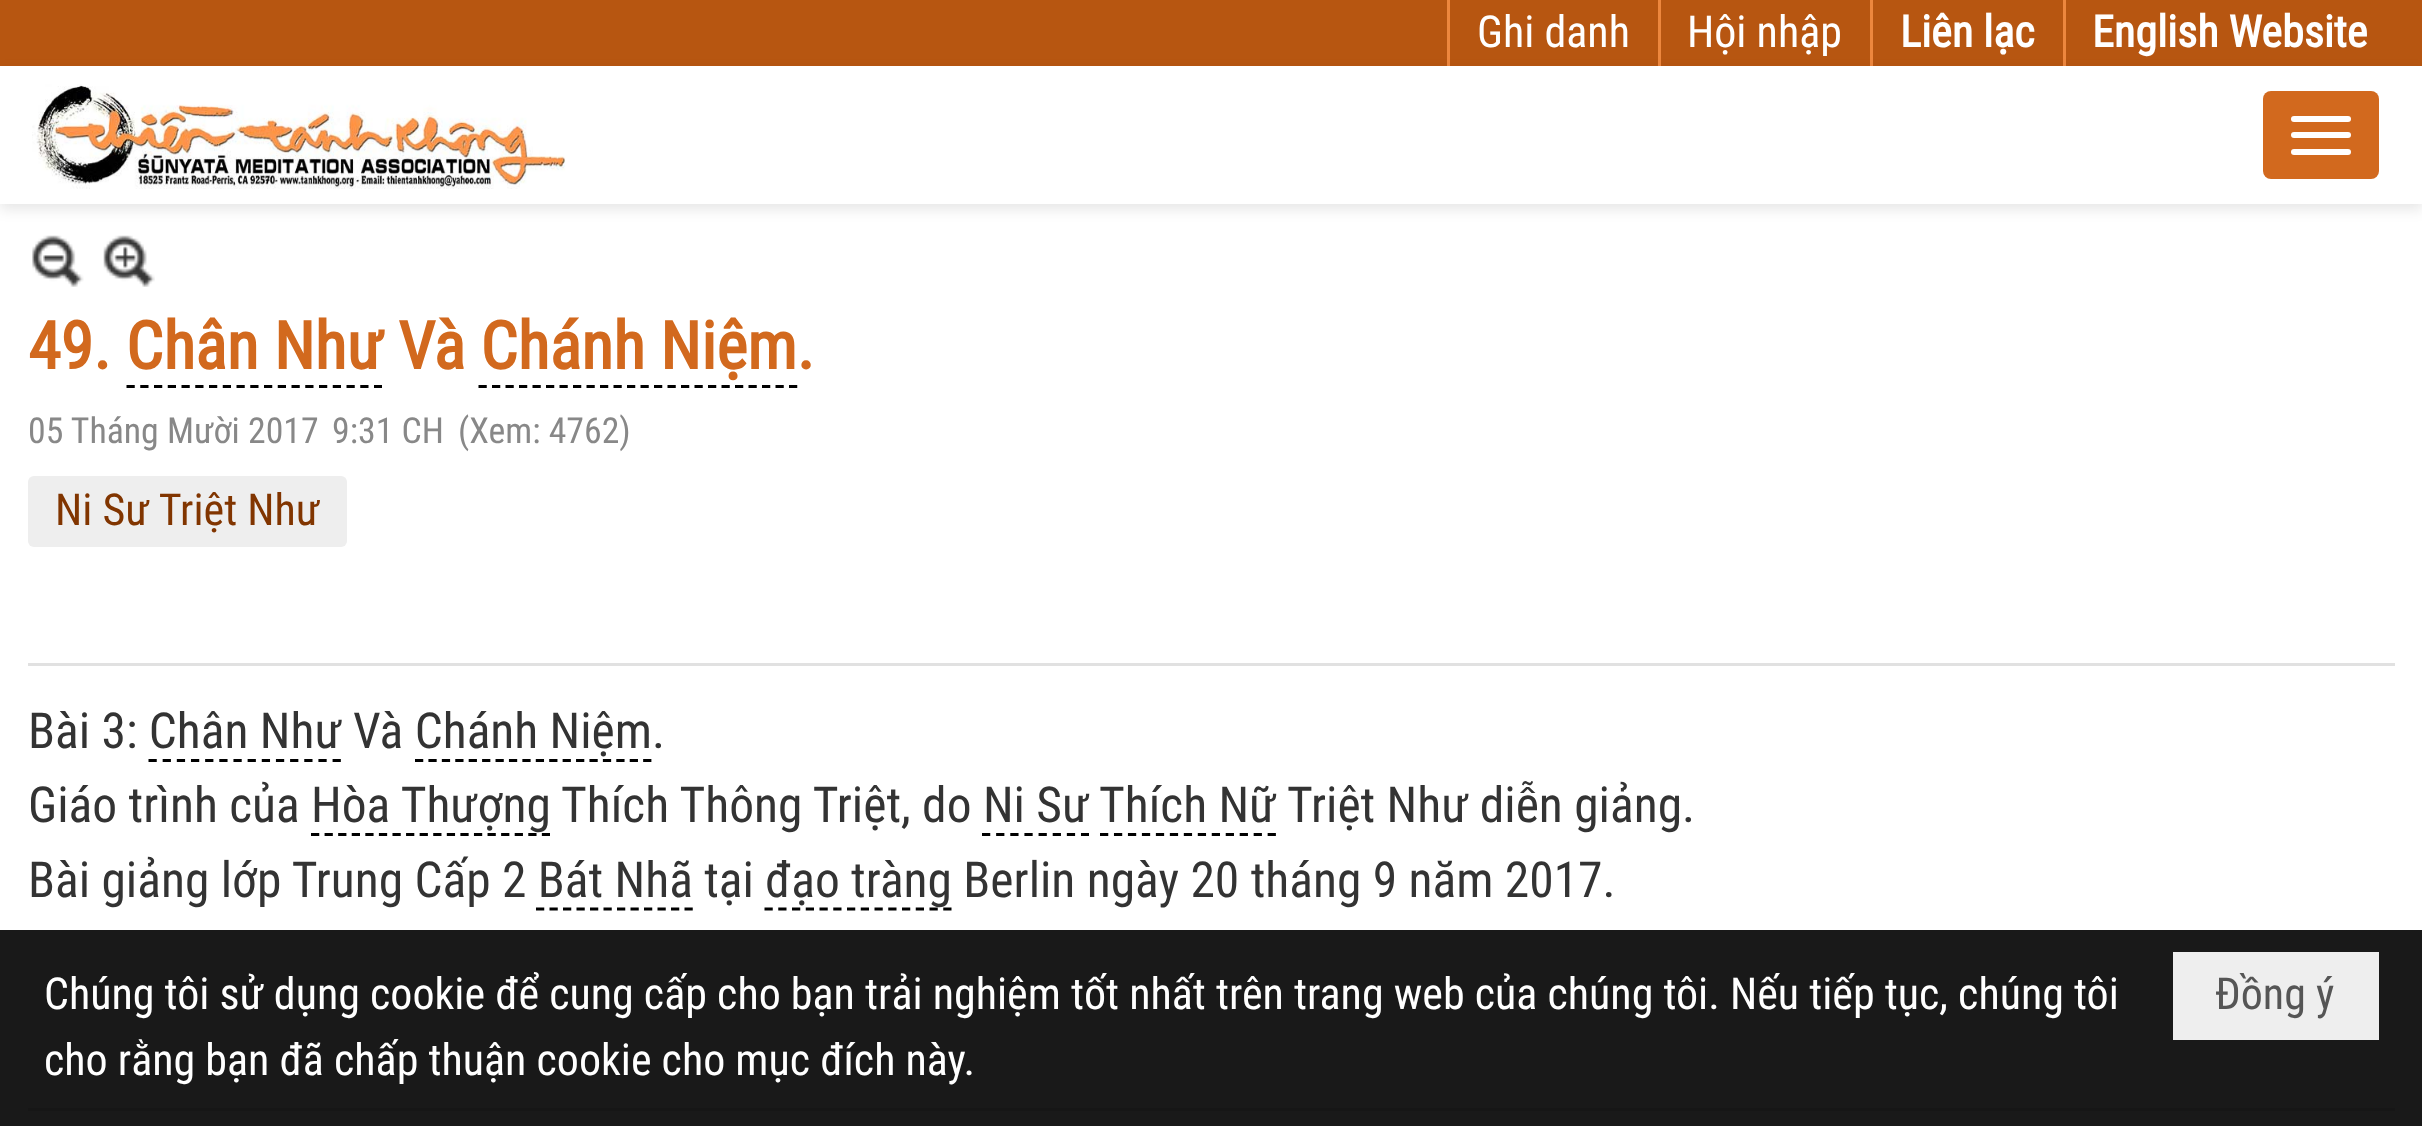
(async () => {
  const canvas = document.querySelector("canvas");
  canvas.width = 2422;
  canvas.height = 1126;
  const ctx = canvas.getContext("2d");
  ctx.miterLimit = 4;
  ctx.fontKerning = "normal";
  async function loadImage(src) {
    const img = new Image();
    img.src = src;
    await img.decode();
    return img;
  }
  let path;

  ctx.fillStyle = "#ffffff";
  ctx.fillRect(0, 0, 2422, 1126);
  for (const [x, y, w, h, color] of [
    [0, 0, 2422, 66, "#b75611"],
    [1447, 0, 3, 66, "#ed873e"],
    [1658, 0, 3, 66, "#ed873e"],
    [1870, 0, 3, 66, "#ed873e"],
    [2063, 0, 3, 66, "#ed873e"],
  ]) {
    ctx.fillStyle = color;
    ctx.fillRect(x, y, w, h);
  }
  ctx.fillStyle = "rgba(0, 0, 0, 0.1)";
  ctx.filter = "blur(7px)";
  ctx.beginPath();
  ctx.rect(0, 72, 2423, 137);
  ctx.fill();
  ctx.filter = "none";
  ctx.fillStyle = "#ffffff";
  ctx.fillRect(0, 66, 2422, 138);
  ctx.drawImage(await loadImage("img/1.png"), 32, 84, 534, 105);
  ctx.fillStyle = "#d2691e";
  ctx.beginPath();
  ctx.roundRect(2263, 91, 116, 88, 8);
  ctx.fill();
  ctx.fillStyle = "#ffffff";
  ctx.beginPath();
  ctx.roundRect(2291, 116, 60, 6, 3);
  ctx.fill();
  ctx.beginPath();
  ctx.roundRect(2291, 132, 60, 6, 3);
  ctx.fill();
  ctx.beginPath();
  ctx.roundRect(2291, 149, 60, 6, 3);
  ctx.fill();
  ctx.fillStyle = "#e1e1e1";
  ctx.fillRect(28, 663, 2367, 3);
  ctx.drawImage(await loadImage("img/2.png"), 32, 235, 52, 52);
  ctx.drawImage(await loadImage("img/3.png"), 103, 235, 52, 52);
  path = new Path2D("M126.5 386.5H382");
  ctx.strokeStyle = "#000000";
  ctx.lineWidth = 2.8;
  ctx.setLineDash([8.25, 5.5]);
  ctx.stroke(path);
  path = new Path2D("M478.5 386.5H797.5");
  ctx.setLineDash([8.25, 5.25]);
  ctx.stroke(path);
  ctx.fillStyle = "#eeeeee";
  ctx.beginPath();
  ctx.roundRect(28, 476, 319, 71, 6);
  ctx.fill();
  path = new Path2D("M148.5 760.5H341");
  ctx.setLineDash([8.25, 5.91]);
  ctx.stroke(path);
  path = new Path2D("M415 760.5H652");
  ctx.setLineDash([8.25, 5.17]);
  ctx.stroke(path);
  path = new Path2D("M1100 834.5H1276");
  ctx.setLineDash([8.25, 5.72]);
  ctx.stroke(path);
  path = new Path2D("M311 834.5H550");
  ctx.setLineDash([8.25, 5.33]);
  ctx.stroke(path);
  path = new Path2D("M982 834.5H1089");
  ctx.setLineDash([8.25, 5.89]);
  ctx.stroke(path);
  path = new Path2D("M764.5 909H951.5");
  ctx.setLineDash([8.25, 5.5]);
  ctx.stroke(path);
  for (const [x, y, w, h, color] of [
    [28, 1111, 2367, 15, "#f9f9f9"],
    [28, 1108, 2367, 3, "#d9d9d9"],
    [0, 930, 2422, 196, "rgba(0, 0, 0, 0.9)"],
    [2173, 952, 206, 88, "#eeeeee"],
  ]) {
    ctx.fillStyle = color;
    ctx.fillRect(x, y, w, h);
  }
  ctx.font = "44px Roboto Condensed";
  ctx.fillStyle = "#ffffff";
  ctx.fillText("Ghi danh", 1477, 47);
  ctx.fillText("Hội nhập", 1687, 47);
  ctx.font = "bold 44px Roboto Condensed";
  ctx.fillText("Liên lạc", 1900, 47);
  ctx.fillText("English Website", 2092, 47);
  ctx.font = "bold 66px Roboto Condensed";
  ctx.fillStyle = "#d2691e";
  ctx.fillText("49. Chân Như Và Chánh Niệm.", 28, 369);
  ctx.font = "35.75px Roboto Condensed";
  ctx.fillStyle = "#888888";
  for (const [text, x, y] of [
    ["05 Tháng Mười 2017", 28, 443],
    ["9:31 CH", 332, 443],
    ["(Xem: 4762)", 458, 443],
  ]) {
    ctx.fillText(text, x, y);
  }
  ctx.font = "44px Roboto Condensed";
  ctx.fillStyle = "#813500";
  ctx.fillText("Ni Sư Triệt Như", 55, 525);
  ctx.font = "49.5px Roboto Condensed";
  ctx.fillStyle = "#333333";
  for (const [text, x, y] of [
    ["Bài 3: Chân Như Và Chánh Niệm.", 28, 748],
    ["Giáo trình của Hòa Thượng", 28, 822],
    ["Thích Thông Triệt, do Ni Sư", 561, 822],
    ["Thích Nữ", 1099, 822],
    ["Triệt Như diễn giảng.", 1287, 822],
    ["Bài giảng lớp Trung Cấp 2 Bát Nhã tại", 28, 897],
    ["đạo tràng Berlin ngày 20 tháng 9 năm 2017.", 765, 897],
  ]) {
    ctx.fillText(text, x, y);
  }
  path = new Path2D("M536 909H693");
  ctx.setLineDash([8.25, 5.25]);
  ctx.stroke(path);
  ctx.font = "44px Roboto Condensed";
  ctx.fillStyle = "#ffffff";
  ctx.fillText("Chúng tôi sử dụng cookie để cung cấp cho bạn trải nghiệm tốt nhất trên trang web của chúng tôi. Nếu tiếp tục, chúng tôi", 44, 1009);
  ctx.fillText("cho rằng bạn đã chấp thuận cookie cho mục đích này.", 44, 1075);
  ctx.fillStyle = "#555555";
  ctx.fillText("Đồng ý", 2215, 1009);
})();
